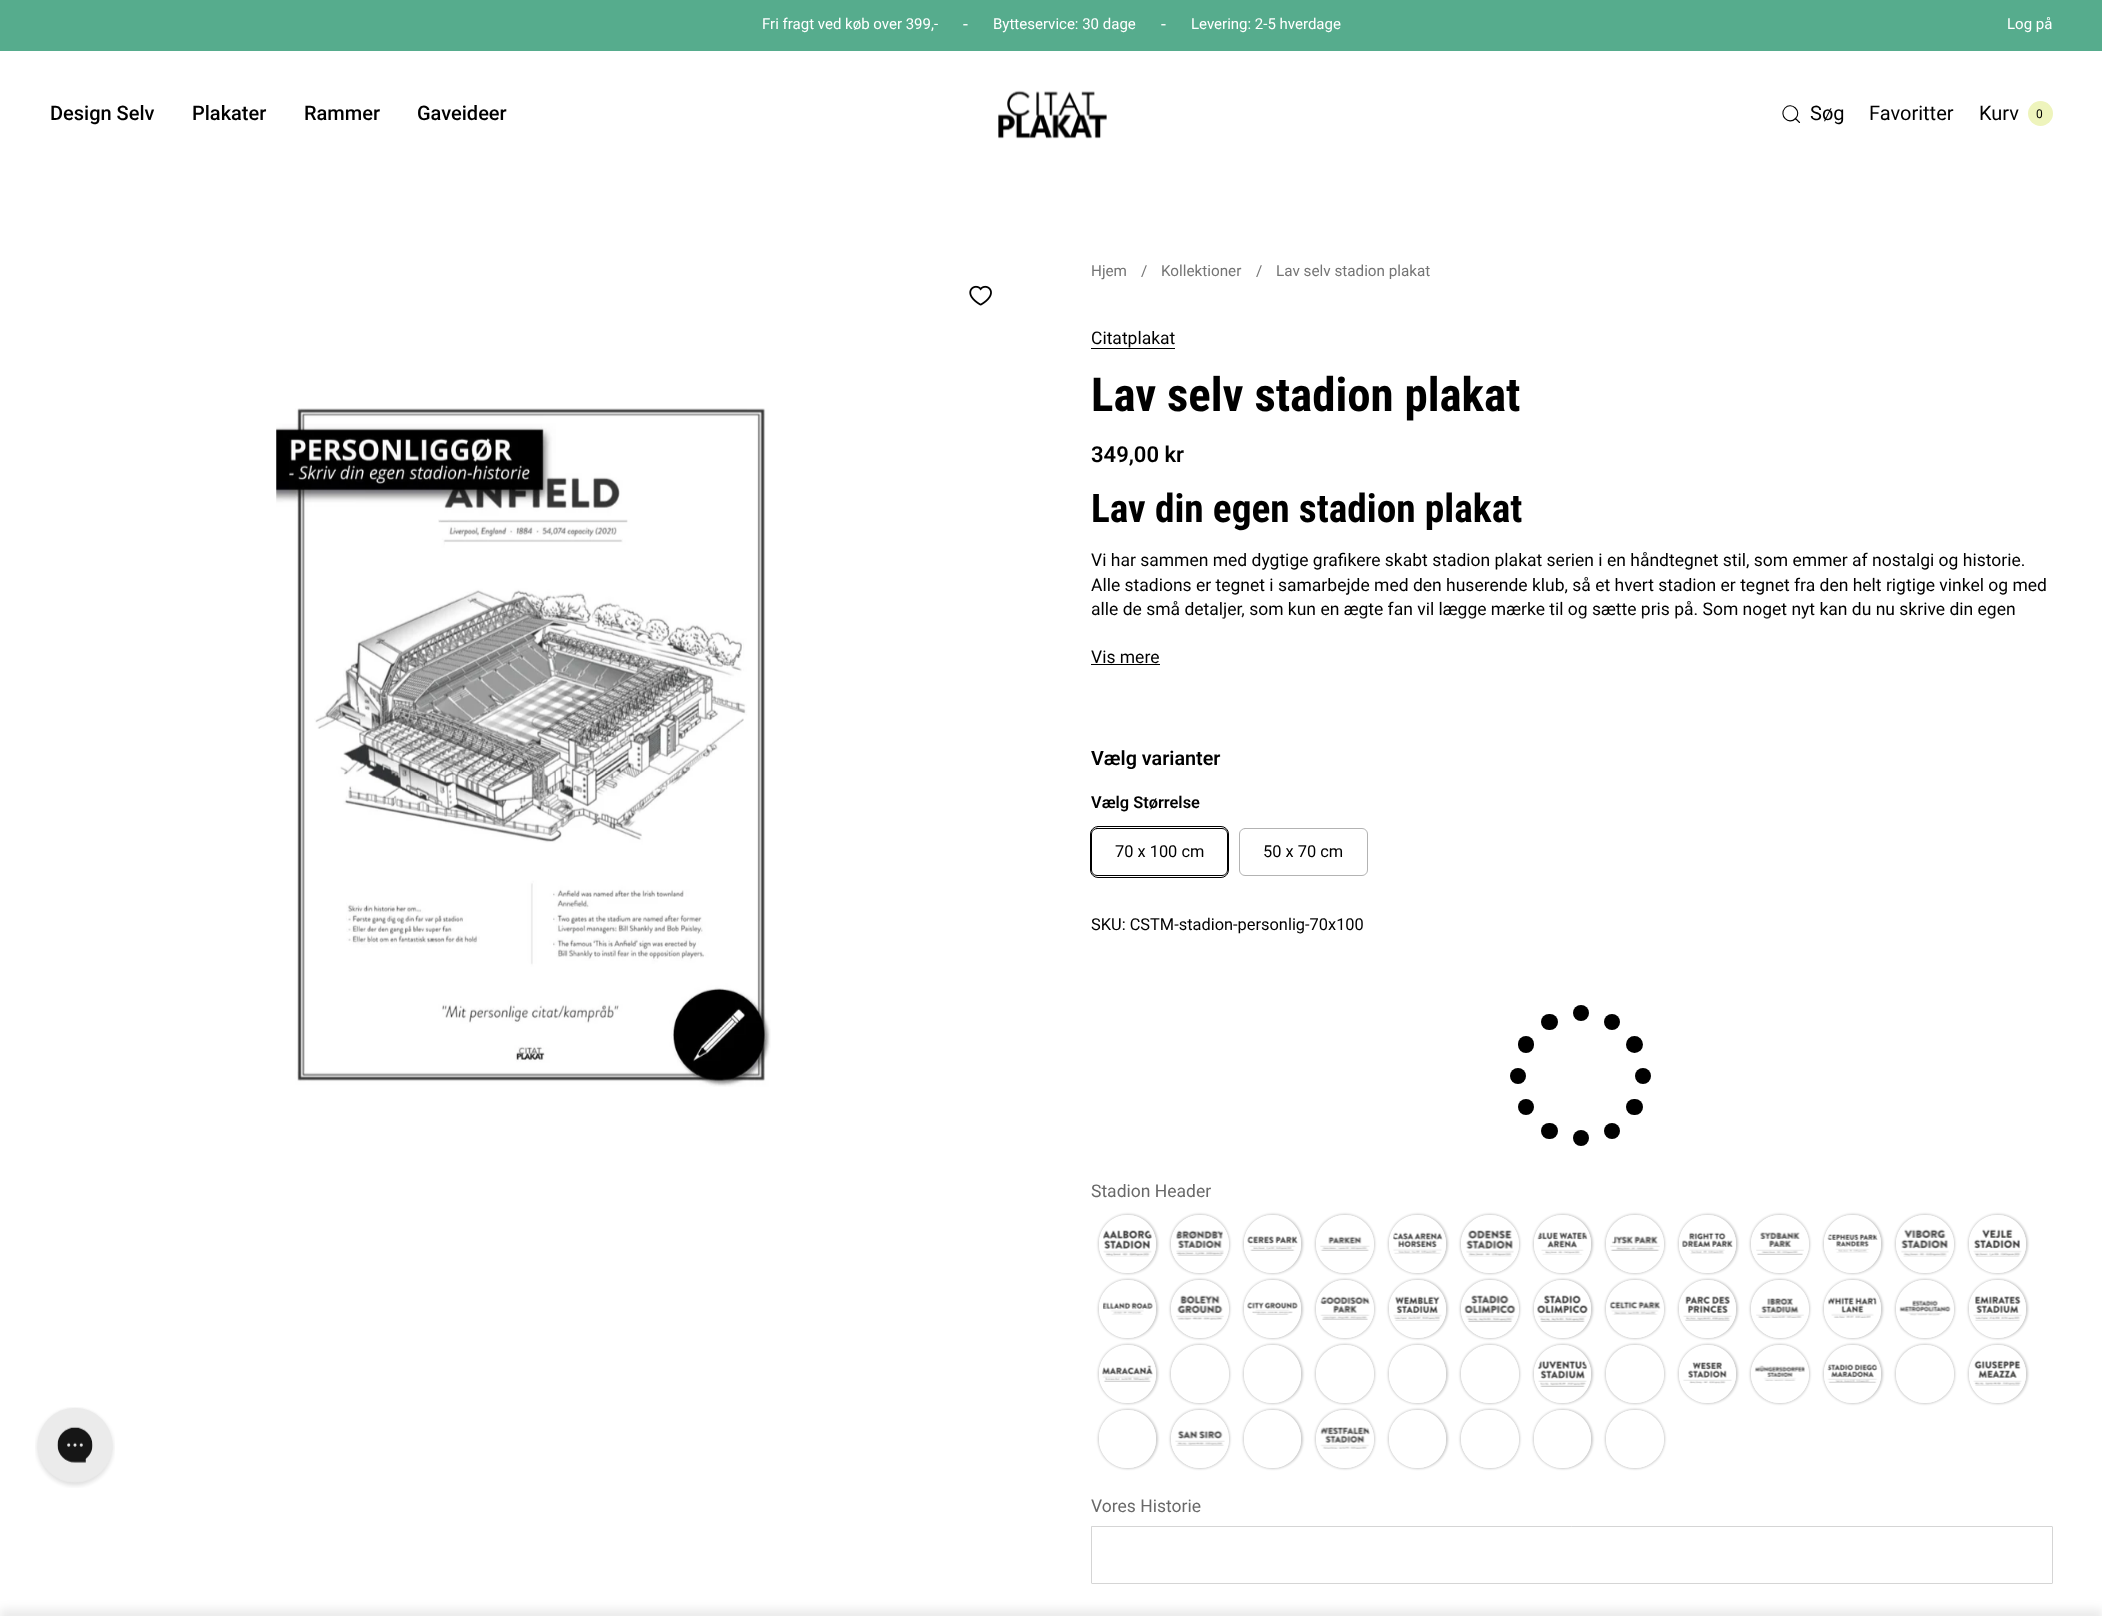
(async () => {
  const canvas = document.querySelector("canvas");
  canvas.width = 2102;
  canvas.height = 1616;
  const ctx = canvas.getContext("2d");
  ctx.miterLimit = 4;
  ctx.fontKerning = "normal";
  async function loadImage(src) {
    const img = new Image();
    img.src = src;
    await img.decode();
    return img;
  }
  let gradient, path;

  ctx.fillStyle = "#ffffff";
  ctx.fillRect(0, 0, 2102, 1616);
  ctx.fillStyle = "#56ac8d";
  ctx.fillRect(0, 0, 2102, 51);
  ctx.drawImage(await loadImage("img/1.png"), 998, 90, 109, 49);
  path = new Path2D("M1799.5 122.5L1795.5 118.5M1795.5 118.5C1802.5 111.5 1791.5 101 1785 108C1778.5 115.5 1788.5 125.5 1795.5 118.5Z");
  ctx.strokeStyle = "#000000";
  ctx.lineWidth = 1.1;
  ctx.lineCap = "round";
  ctx.lineJoin = "round";
  ctx.stroke(path);
  ctx.fillStyle = "#eef4bc";
  ctx.beginPath();
  ctx.arc(2040.5, 113.5, 12.5, 0, Math.PI * 2);
  ctx.fill();
  ctx.drawImage(await loadImage("img/2.png"), 969, 285, 23, 21);
  ctx.drawImage(await loadImage("img/3.png"), 276, 408, 495, 679);
  ctx.fillStyle = "#000000";
  ctx.fillRect(1091, 348, 84, 1);
  ctx.fillRect(1091, 664, 69, 1);
  ctx.beginPath();
  ctx.roundRect(1090.5, 826.5, 138, 51, 7.5);
  ctx.lineWidth = 1;
  ctx.lineJoin = "miter";
  ctx.stroke();
  ctx.beginPath();
  ctx.roundRect(1091.5, 828.5, 136, 47, 5.5);
  ctx.stroke();
  ctx.beginPath();
  ctx.roundRect(1239.5, 828.5, 128, 47, 5.5);
  ctx.strokeStyle = "#b3b3b3";
  ctx.stroke();
  ctx.save();
  path = new Path2D("M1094 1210H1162V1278H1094ZM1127.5 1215C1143 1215 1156 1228 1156 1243.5V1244.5C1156 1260 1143 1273 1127.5 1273C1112 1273 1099 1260 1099 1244.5V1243.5C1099 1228 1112 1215 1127.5 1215Z");
  ctx.clip(path, "evenodd");
  ctx.fillStyle = "rgba(0, 0, 0, 0.2)";
  ctx.filter = "blur(1px)";
  ctx.beginPath();
  ctx.roundRect(1098, 1214, 60, 60, 30);
  ctx.fill();
  ctx.filter = "none";
  ctx.restore();
  ctx.beginPath();
  ctx.roundRect(1101, 1217, 53, 54, 26.5);
  ctx.strokeStyle = "#ffffff";
  ctx.lineWidth = 4;
  ctx.stroke();
  ctx.drawImage(await loadImage("img/4.png"), 1103, 1230, 49, 27);
  ctx.save();
  path = new Path2D("M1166 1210H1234V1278H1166ZM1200 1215C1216 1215 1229 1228 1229 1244C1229 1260 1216 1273 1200 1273C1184 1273 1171 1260 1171 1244C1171 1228 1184 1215 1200 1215Z");
  ctx.clip(path, "evenodd");
  ctx.fillStyle = "rgba(0, 0, 0, 0.2)";
  ctx.filter = "blur(1px)";
  ctx.beginPath();
  ctx.roundRect(1170, 1214, 60, 60, 30);
  ctx.fill();
  ctx.filter = "none";
  ctx.restore();
  ctx.beginPath();
  ctx.arc(1200, 1244, 27, 0, Math.PI * 2);
  ctx.stroke();
  ctx.drawImage(await loadImage("img/5.png"), 1176, 1230, 48, 26);
  ctx.save();
  path = new Path2D("M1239 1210H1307V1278H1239ZM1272.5 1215C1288 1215 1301 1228 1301 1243.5V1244.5C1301 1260 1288 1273 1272.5 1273C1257 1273 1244 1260 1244 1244.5V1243.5C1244 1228 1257 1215 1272.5 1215Z");
  ctx.clip(path, "evenodd");
  ctx.fillStyle = "rgba(0, 0, 0, 0.2)";
  ctx.filter = "blur(1px)";
  ctx.beginPath();
  ctx.roundRect(1243, 1214, 60, 60, 30);
  ctx.fill();
  ctx.filter = "none";
  ctx.restore();
  ctx.beginPath();
  ctx.roundRect(1246, 1217, 53, 54, 26.5);
  ctx.stroke();
  ctx.drawImage(await loadImage("img/6.png"), 1247, 1236, 51, 15);
  ctx.save();
  path = new Path2D("M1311 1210H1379V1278H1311ZM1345 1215C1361 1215 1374 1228 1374 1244C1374 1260 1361 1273 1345 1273C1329 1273 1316 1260 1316 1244C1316 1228 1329 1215 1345 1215Z");
  ctx.clip(path, "evenodd");
  ctx.fillStyle = "rgba(0, 0, 0, 0.2)";
  ctx.filter = "blur(1px)";
  ctx.beginPath();
  ctx.roundRect(1315, 1214, 60, 60, 30);
  ctx.fill();
  ctx.filter = "none";
  ctx.restore();
  ctx.beginPath();
  ctx.arc(1345, 1244, 27, 0, Math.PI * 2);
  ctx.stroke();
  ctx.drawImage(await loadImage("img/7.png"), 1320, 1236, 50, 15);
  ctx.save();
  path = new Path2D("M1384 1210H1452V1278H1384ZM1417.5 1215C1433 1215 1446 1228 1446 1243.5V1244.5C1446 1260 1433 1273 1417.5 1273C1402 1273 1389 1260 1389 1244.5V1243.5C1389 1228 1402 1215 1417.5 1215Z");
  ctx.clip(path, "evenodd");
  ctx.fillStyle = "rgba(0, 0, 0, 0.2)";
  ctx.filter = "blur(1px)";
  ctx.beginPath();
  ctx.roundRect(1388, 1214, 60, 60, 30);
  ctx.fill();
  ctx.filter = "none";
  ctx.restore();
  ctx.beginPath();
  ctx.roundRect(1391, 1217, 53, 54, 26.5);
  ctx.stroke();
  ctx.drawImage(await loadImage("img/8.png"), 1393, 1232, 50, 22);
  ctx.save();
  path = new Path2D("M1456 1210H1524V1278H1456ZM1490 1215C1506 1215 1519 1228 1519 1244C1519 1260 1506 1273 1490 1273C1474 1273 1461 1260 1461 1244C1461 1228 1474 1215 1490 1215Z");
  ctx.clip(path, "evenodd");
  ctx.fillStyle = "rgba(0, 0, 0, 0.2)";
  ctx.filter = "blur(1px)";
  ctx.beginPath();
  ctx.roundRect(1460, 1214, 60, 60, 30);
  ctx.fill();
  ctx.filter = "none";
  ctx.restore();
  ctx.beginPath();
  ctx.arc(1490, 1244, 27, 0, Math.PI * 2);
  ctx.stroke();
  ctx.drawImage(await loadImage("img/9.png"), 1466, 1230, 48, 27);
  ctx.save();
  path = new Path2D("M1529 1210H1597V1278H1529ZM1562.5 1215C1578 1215 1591 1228 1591 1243.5V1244.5C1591 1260 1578 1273 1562.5 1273C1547 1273 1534 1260 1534 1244.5V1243.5C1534 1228 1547 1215 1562.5 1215Z");
  ctx.clip(path, "evenodd");
  ctx.fillStyle = "rgba(0, 0, 0, 0.2)";
  ctx.filter = "blur(1px)";
  ctx.beginPath();
  ctx.roundRect(1533, 1214, 60, 60, 30);
  ctx.fill();
  ctx.filter = "none";
  ctx.restore();
  ctx.beginPath();
  ctx.roundRect(1536, 1217, 53, 54, 26.5);
  ctx.stroke();
  ctx.drawImage(await loadImage("img/10.png"), 1537, 1232, 51, 23);
  ctx.save();
  path = new Path2D("M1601 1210H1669V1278H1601ZM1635 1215C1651 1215 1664 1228 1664 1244C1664 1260 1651 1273 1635 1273C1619 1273 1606 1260 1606 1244C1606 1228 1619 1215 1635 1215Z");
  ctx.clip(path, "evenodd");
  ctx.fillStyle = "rgba(0, 0, 0, 0.2)";
  ctx.filter = "blur(1px)";
  ctx.beginPath();
  ctx.roundRect(1605, 1214, 60, 60, 30);
  ctx.fill();
  ctx.filter = "none";
  ctx.restore();
  ctx.beginPath();
  ctx.arc(1635, 1244, 27, 0, Math.PI * 2);
  ctx.stroke();
  ctx.drawImage(await loadImage("img/11.png"), 1610, 1236, 50, 15);
  ctx.save();
  path = new Path2D("M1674 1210H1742V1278H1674ZM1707.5 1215C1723 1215 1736 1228 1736 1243.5V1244.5C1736 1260 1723 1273 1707.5 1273C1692 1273 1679 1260 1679 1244.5V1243.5C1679 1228 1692 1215 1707.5 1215Z");
  ctx.clip(path, "evenodd");
  ctx.fillStyle = "rgba(0, 0, 0, 0.2)";
  ctx.filter = "blur(1px)";
  ctx.beginPath();
  ctx.roundRect(1678, 1214, 60, 60, 30);
  ctx.fill();
  ctx.filter = "none";
  ctx.restore();
  ctx.beginPath();
  ctx.roundRect(1681, 1217, 53, 54, 26.5);
  ctx.stroke();
  ctx.drawImage(await loadImage("img/12.png"), 1682, 1232, 51, 22);
  ctx.save();
  path = new Path2D("M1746 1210H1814V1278H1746ZM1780 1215C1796 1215 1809 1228 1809 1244C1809 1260 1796 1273 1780 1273C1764 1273 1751 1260 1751 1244C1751 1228 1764 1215 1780 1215Z");
  ctx.clip(path, "evenodd");
  ctx.fillStyle = "rgba(0, 0, 0, 0.2)";
  ctx.filter = "blur(1px)";
  ctx.beginPath();
  ctx.roundRect(1750, 1214, 60, 60, 30);
  ctx.fill();
  ctx.filter = "none";
  ctx.restore();
  ctx.beginPath();
  ctx.arc(1780, 1244, 27, 0, Math.PI * 2);
  ctx.stroke();
  ctx.drawImage(await loadImage("img/13.png"), 1756, 1232, 48, 23);
  ctx.save();
  path = new Path2D("M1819 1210H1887V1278H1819ZM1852.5 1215C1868 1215 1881 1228 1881 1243.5V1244.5C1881 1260 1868 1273 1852.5 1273C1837 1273 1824 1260 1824 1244.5V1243.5C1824 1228 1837 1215 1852.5 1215Z");
  ctx.clip(path, "evenodd");
  ctx.fillStyle = "rgba(0, 0, 0, 0.2)";
  ctx.filter = "blur(1px)";
  ctx.beginPath();
  ctx.roundRect(1823, 1214, 60, 60, 30);
  ctx.fill();
  ctx.filter = "none";
  ctx.restore();
  ctx.beginPath();
  ctx.roundRect(1826, 1217, 53, 54, 26.5);
  ctx.stroke();
  ctx.drawImage(await loadImage("img/14.png"), 1827, 1234, 51, 19);
  ctx.save();
  path = new Path2D("M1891 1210H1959V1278H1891ZM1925 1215C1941 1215 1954 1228 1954 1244C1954 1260 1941 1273 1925 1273C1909 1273 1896 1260 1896 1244C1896 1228 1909 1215 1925 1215Z");
  ctx.clip(path, "evenodd");
  ctx.fillStyle = "rgba(0, 0, 0, 0.2)";
  ctx.filter = "blur(1px)";
  ctx.beginPath();
  ctx.roundRect(1895, 1214, 60, 60, 30);
  ctx.fill();
  ctx.filter = "none";
  ctx.restore();
  ctx.beginPath();
  ctx.arc(1925, 1244, 27, 0, Math.PI * 2);
  ctx.stroke();
  ctx.drawImage(await loadImage("img/15.png"), 1901, 1229, 48, 28);
  ctx.save();
  path = new Path2D("M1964 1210H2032V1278H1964ZM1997.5 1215C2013 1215 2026 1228 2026 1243.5V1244.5C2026 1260 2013 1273 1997.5 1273C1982 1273 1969 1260 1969 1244.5V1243.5C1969 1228 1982 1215 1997.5 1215Z");
  ctx.clip(path, "evenodd");
  ctx.fillStyle = "rgba(0, 0, 0, 0.2)";
  ctx.filter = "blur(1px)";
  ctx.beginPath();
  ctx.roundRect(1968, 1214, 60, 60, 30);
  ctx.fill();
  ctx.filter = "none";
  ctx.restore();
  ctx.beginPath();
  ctx.roundRect(1971, 1217, 53, 54, 26.5);
  ctx.stroke();
  ctx.drawImage(await loadImage("img/16.png"), 1973, 1229, 49, 28);
  ctx.save();
  path = new Path2D("M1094 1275H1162V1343H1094ZM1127.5 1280C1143 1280 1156 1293 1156 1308.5V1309.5C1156 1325 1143 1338 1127.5 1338C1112 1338 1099 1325 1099 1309.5V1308.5C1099 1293 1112 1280 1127.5 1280Z");
  ctx.clip(path, "evenodd");
  ctx.fillStyle = "rgba(0, 0, 0, 0.2)";
  ctx.filter = "blur(1px)";
  ctx.beginPath();
  ctx.roundRect(1098, 1279, 60, 60, 30);
  ctx.fill();
  ctx.filter = "none";
  ctx.restore();
  ctx.beginPath();
  ctx.roundRect(1101, 1282, 53, 54, 26.5);
  ctx.stroke();
  ctx.drawImage(await loadImage("img/17.png"), 1103, 1302, 50, 13);
  ctx.save();
  path = new Path2D("M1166 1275H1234V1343H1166ZM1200 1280C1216 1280 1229 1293 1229 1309C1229 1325 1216 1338 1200 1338C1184 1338 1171 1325 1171 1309C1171 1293 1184 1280 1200 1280Z");
  ctx.clip(path, "evenodd");
  ctx.fillStyle = "rgba(0, 0, 0, 0.2)";
  ctx.filter = "blur(1px)";
  ctx.beginPath();
  ctx.roundRect(1170, 1279, 60, 60, 30);
  ctx.fill();
  ctx.filter = "none";
  ctx.restore();
  ctx.beginPath();
  ctx.arc(1200, 1309, 27, 0, Math.PI * 2);
  ctx.stroke();
  ctx.drawImage(await loadImage("img/18.png"), 1176, 1295, 48, 25);
  ctx.save();
  path = new Path2D("M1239 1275H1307V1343H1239ZM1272.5 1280C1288 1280 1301 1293 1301 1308.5V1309.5C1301 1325 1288 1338 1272.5 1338C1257 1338 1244 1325 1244 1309.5V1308.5C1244 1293 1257 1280 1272.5 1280Z");
  ctx.clip(path, "evenodd");
  ctx.fillStyle = "rgba(0, 0, 0, 0.2)";
  ctx.filter = "blur(1px)";
  ctx.beginPath();
  ctx.roundRect(1243, 1279, 60, 60, 30);
  ctx.fill();
  ctx.filter = "none";
  ctx.restore();
  ctx.beginPath();
  ctx.roundRect(1246, 1282, 53, 54, 26.5);
  ctx.stroke();
  ctx.drawImage(await loadImage("img/19.png"), 1247, 1302, 51, 13);
  ctx.save();
  path = new Path2D("M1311 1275H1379V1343H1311ZM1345 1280C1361 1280 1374 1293 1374 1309C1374 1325 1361 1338 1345 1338C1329 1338 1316 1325 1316 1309C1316 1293 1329 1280 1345 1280Z");
  ctx.clip(path, "evenodd");
  ctx.fillStyle = "rgba(0, 0, 0, 0.2)";
  ctx.filter = "blur(1px)";
  ctx.beginPath();
  ctx.roundRect(1315, 1279, 60, 60, 30);
  ctx.fill();
  ctx.filter = "none";
  ctx.restore();
  ctx.beginPath();
  ctx.arc(1345, 1309, 27, 0, Math.PI * 2);
  ctx.stroke();
  ctx.drawImage(await loadImage("img/20.png"), 1320, 1296, 50, 24);
  ctx.save();
  path = new Path2D("M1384 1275H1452V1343H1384ZM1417.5 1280C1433 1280 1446 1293 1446 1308.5V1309.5C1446 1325 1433 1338 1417.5 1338C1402 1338 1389 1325 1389 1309.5V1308.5C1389 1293 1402 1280 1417.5 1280Z");
  ctx.clip(path, "evenodd");
  ctx.fillStyle = "rgba(0, 0, 0, 0.2)";
  ctx.filter = "blur(1px)";
  ctx.beginPath();
  ctx.roundRect(1388, 1279, 60, 60, 30);
  ctx.fill();
  ctx.filter = "none";
  ctx.restore();
  ctx.beginPath();
  ctx.roundRect(1391, 1282, 53, 54, 26.5);
  ctx.stroke();
  ctx.drawImage(await loadImage("img/21.png"), 1393, 1296, 49, 25);
  ctx.save();
  path = new Path2D("M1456 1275H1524V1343H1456ZM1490 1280C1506 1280 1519 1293 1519 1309C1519 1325 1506 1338 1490 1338C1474 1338 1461 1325 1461 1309C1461 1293 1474 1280 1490 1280Z");
  ctx.clip(path, "evenodd");
  ctx.fillStyle = "rgba(0, 0, 0, 0.2)";
  ctx.filter = "blur(1px)";
  ctx.beginPath();
  ctx.roundRect(1460, 1279, 60, 60, 30);
  ctx.fill();
  ctx.filter = "none";
  ctx.restore();
  ctx.beginPath();
  ctx.arc(1490, 1309, 27, 0, Math.PI * 2);
  ctx.stroke();
  ctx.drawImage(await loadImage("img/22.png"), 1464, 1295, 52, 27);
  ctx.save();
  path = new Path2D("M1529 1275H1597V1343H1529ZM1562.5 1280C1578 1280 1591 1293 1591 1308.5V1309.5C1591 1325 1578 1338 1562.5 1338C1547 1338 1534 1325 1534 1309.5V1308.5C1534 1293 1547 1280 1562.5 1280Z");
  ctx.clip(path, "evenodd");
  ctx.fillStyle = "rgba(0, 0, 0, 0.2)";
  ctx.filter = "blur(1px)";
  ctx.beginPath();
  ctx.roundRect(1533, 1279, 60, 60, 30);
  ctx.fill();
  ctx.filter = "none";
  ctx.restore();
  ctx.beginPath();
  ctx.roundRect(1536, 1282, 53, 54, 26.5);
  ctx.stroke();
  ctx.drawImage(await loadImage("img/23.png"), 1537, 1295, 51, 27);
  ctx.save();
  path = new Path2D("M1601 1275H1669V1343H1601ZM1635 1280C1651 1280 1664 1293 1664 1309C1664 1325 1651 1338 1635 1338C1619 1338 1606 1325 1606 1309C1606 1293 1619 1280 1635 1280Z");
  ctx.clip(path, "evenodd");
  ctx.fillStyle = "rgba(0, 0, 0, 0.2)";
  ctx.filter = "blur(1px)";
  ctx.beginPath();
  ctx.roundRect(1605, 1279, 60, 60, 30);
  ctx.fill();
  ctx.filter = "none";
  ctx.restore();
  ctx.beginPath();
  ctx.arc(1635, 1309, 27, 0, Math.PI * 2);
  ctx.stroke();
  ctx.drawImage(await loadImage("img/24.png"), 1609, 1301, 52, 14);
  ctx.save();
  path = new Path2D("M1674 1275H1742V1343H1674ZM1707.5 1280C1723 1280 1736 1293 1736 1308.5V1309.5C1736 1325 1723 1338 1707.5 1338C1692 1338 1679 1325 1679 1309.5V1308.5C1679 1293 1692 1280 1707.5 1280Z");
  ctx.clip(path, "evenodd");
  ctx.fillStyle = "rgba(0, 0, 0, 0.2)";
  ctx.filter = "blur(1px)";
  ctx.beginPath();
  ctx.roundRect(1678, 1279, 60, 60, 30);
  ctx.fill();
  ctx.filter = "none";
  ctx.restore();
  ctx.beginPath();
  ctx.roundRect(1681, 1282, 53, 54, 26.5);
  ctx.stroke();
  ctx.drawImage(await loadImage("img/25.png"), 1683, 1296, 49, 25);
  ctx.save();
  path = new Path2D("M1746 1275H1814V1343H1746ZM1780 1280C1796 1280 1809 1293 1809 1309C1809 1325 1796 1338 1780 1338C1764 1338 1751 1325 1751 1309C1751 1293 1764 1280 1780 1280Z");
  ctx.clip(path, "evenodd");
  ctx.fillStyle = "rgba(0, 0, 0, 0.2)";
  ctx.filter = "blur(1px)";
  ctx.beginPath();
  ctx.roundRect(1750, 1279, 60, 60, 30);
  ctx.fill();
  ctx.filter = "none";
  ctx.restore();
  ctx.beginPath();
  ctx.arc(1780, 1309, 27, 0, Math.PI * 2);
  ctx.stroke();
  ctx.drawImage(await loadImage("img/26.png"), 1756, 1298, 48, 20);
  ctx.save();
  path = new Path2D("M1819 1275H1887V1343H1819ZM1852.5 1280C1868 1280 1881 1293 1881 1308.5V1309.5C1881 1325 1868 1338 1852.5 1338C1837 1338 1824 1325 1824 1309.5V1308.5C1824 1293 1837 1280 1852.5 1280Z");
  ctx.clip(path, "evenodd");
  ctx.fillStyle = "rgba(0, 0, 0, 0.2)";
  ctx.filter = "blur(1px)";
  ctx.beginPath();
  ctx.roundRect(1823, 1279, 60, 60, 30);
  ctx.fill();
  ctx.filter = "none";
  ctx.restore();
  ctx.beginPath();
  ctx.roundRect(1826, 1282, 53, 54, 26.5);
  ctx.stroke();
  ctx.drawImage(await loadImage("img/27.png"), 1828, 1297, 49, 21);
  ctx.save();
  path = new Path2D("M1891 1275H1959V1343H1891ZM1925 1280C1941 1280 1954 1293 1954 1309C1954 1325 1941 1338 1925 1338C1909 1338 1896 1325 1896 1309C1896 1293 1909 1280 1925 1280Z");
  ctx.clip(path, "evenodd");
  ctx.fillStyle = "rgba(0, 0, 0, 0.2)";
  ctx.filter = "blur(1px)";
  ctx.beginPath();
  ctx.roundRect(1895, 1279, 60, 60, 30);
  ctx.fill();
  ctx.filter = "none";
  ctx.restore();
  ctx.beginPath();
  ctx.arc(1925, 1309, 27, 0, Math.PI * 2);
  ctx.stroke();
  ctx.drawImage(await loadImage("img/28.png"), 1899, 1300, 52, 16);
  ctx.save();
  path = new Path2D("M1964 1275H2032V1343H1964ZM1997.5 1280C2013 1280 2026 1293 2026 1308.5V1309.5C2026 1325 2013 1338 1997.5 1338C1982 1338 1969 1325 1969 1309.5V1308.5C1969 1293 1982 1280 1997.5 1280Z");
  ctx.clip(path, "evenodd");
  ctx.fillStyle = "rgba(0, 0, 0, 0.2)";
  ctx.filter = "blur(1px)";
  ctx.beginPath();
  ctx.roundRect(1968, 1279, 60, 60, 30);
  ctx.fill();
  ctx.filter = "none";
  ctx.restore();
  ctx.beginPath();
  ctx.roundRect(1971, 1282, 53, 54, 26.5);
  ctx.stroke();
  ctx.drawImage(await loadImage("img/29.png"), 1973, 1296, 49, 25);
  ctx.save();
  path = new Path2D("M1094 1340H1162V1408H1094ZM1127.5 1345C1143 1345 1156 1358 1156 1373.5V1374.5C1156 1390 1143 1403 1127.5 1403C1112 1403 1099 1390 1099 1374.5V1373.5C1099 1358 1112 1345 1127.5 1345Z");
  ctx.clip(path, "evenodd");
  ctx.fillStyle = "rgba(0, 0, 0, 0.2)";
  ctx.filter = "blur(1px)";
  ctx.beginPath();
  ctx.roundRect(1098, 1344, 60, 60, 30);
  ctx.fill();
  ctx.filter = "none";
  ctx.restore();
  ctx.beginPath();
  ctx.roundRect(1101, 1347, 53, 54, 26.5);
  ctx.stroke();
  ctx.drawImage(await loadImage("img/30.png"), 1102, 1365, 51, 17);
  ctx.save();
  path = new Path2D("M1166 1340H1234V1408H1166ZM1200 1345C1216 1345 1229 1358 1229 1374C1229 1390 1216 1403 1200 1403C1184 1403 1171 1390 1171 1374C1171 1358 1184 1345 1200 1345Z");
  ctx.clip(path, "evenodd");
  ctx.fillStyle = "rgba(0, 0, 0, 0.2)";
  ctx.filter = "blur(1px)";
  ctx.beginPath();
  ctx.roundRect(1170, 1344, 60, 60, 30);
  ctx.fill();
  ctx.filter = "none";
  ctx.restore();
  ctx.beginPath();
  ctx.arc(1200, 1374, 27, 0, Math.PI * 2);
  ctx.stroke();
  ctx.save();
  path = new Path2D("M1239 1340H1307V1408H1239ZM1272.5 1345C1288 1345 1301 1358 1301 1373.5V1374.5C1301 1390 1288 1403 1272.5 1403C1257 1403 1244 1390 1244 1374.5V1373.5C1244 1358 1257 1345 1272.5 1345Z");
  ctx.clip(path, "evenodd");
  ctx.fillStyle = "rgba(0, 0, 0, 0.2)";
  ctx.filter = "blur(1px)";
  ctx.beginPath();
  ctx.roundRect(1243, 1344, 60, 60, 30);
  ctx.fill();
  ctx.filter = "none";
  ctx.restore();
  ctx.beginPath();
  ctx.roundRect(1246, 1347, 53, 54, 26.5);
  ctx.stroke();
  ctx.save();
  path = new Path2D("M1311 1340H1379V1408H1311ZM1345 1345C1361 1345 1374 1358 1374 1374C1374 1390 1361 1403 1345 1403C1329 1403 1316 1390 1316 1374C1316 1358 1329 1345 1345 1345Z");
  ctx.clip(path, "evenodd");
  ctx.fillStyle = "rgba(0, 0, 0, 0.2)";
  ctx.filter = "blur(1px)";
  ctx.beginPath();
  ctx.roundRect(1315, 1344, 60, 60, 30);
  ctx.fill();
  ctx.filter = "none";
  ctx.restore();
  ctx.beginPath();
  ctx.arc(1345, 1374, 27, 0, Math.PI * 2);
  ctx.stroke();
  ctx.save();
  path = new Path2D("M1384 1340H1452V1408H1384ZM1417.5 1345C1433 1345 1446 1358 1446 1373.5V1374.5C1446 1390 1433 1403 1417.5 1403C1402 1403 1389 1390 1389 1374.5V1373.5C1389 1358 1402 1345 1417.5 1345Z");
  ctx.clip(path, "evenodd");
  ctx.fillStyle = "rgba(0, 0, 0, 0.2)";
  ctx.filter = "blur(1px)";
  ctx.beginPath();
  ctx.roundRect(1388, 1344, 60, 60, 30);
  ctx.fill();
  ctx.filter = "none";
  ctx.restore();
  ctx.beginPath();
  ctx.roundRect(1391, 1347, 53, 54, 26.5);
  ctx.stroke();
  ctx.save();
  path = new Path2D("M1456 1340H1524V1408H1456ZM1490 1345C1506 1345 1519 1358 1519 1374C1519 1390 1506 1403 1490 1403C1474 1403 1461 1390 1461 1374C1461 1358 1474 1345 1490 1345Z");
  ctx.clip(path, "evenodd");
  ctx.fillStyle = "rgba(0, 0, 0, 0.2)";
  ctx.filter = "blur(1px)";
  ctx.beginPath();
  ctx.roundRect(1460, 1344, 60, 60, 30);
  ctx.fill();
  ctx.filter = "none";
  ctx.restore();
  ctx.beginPath();
  ctx.arc(1490, 1374, 27, 0, Math.PI * 2);
  ctx.stroke();
  ctx.save();
  path = new Path2D("M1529 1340H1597V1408H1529ZM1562.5 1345C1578 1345 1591 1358 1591 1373.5V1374.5C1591 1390 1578 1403 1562.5 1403C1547 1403 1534 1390 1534 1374.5V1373.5C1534 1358 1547 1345 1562.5 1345Z");
  ctx.clip(path, "evenodd");
  ctx.fillStyle = "rgba(0, 0, 0, 0.2)";
  ctx.filter = "blur(1px)";
  ctx.beginPath();
  ctx.roundRect(1533, 1344, 60, 60, 30);
  ctx.fill();
  ctx.filter = "none";
  ctx.restore();
  ctx.beginPath();
  ctx.roundRect(1536, 1347, 53, 54, 26.5);
  ctx.stroke();
  ctx.drawImage(await loadImage("img/31.png"), 1537, 1360, 50, 27);
  ctx.save();
  path = new Path2D("M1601 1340H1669V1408H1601ZM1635 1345C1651 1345 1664 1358 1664 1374C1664 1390 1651 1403 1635 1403C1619 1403 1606 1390 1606 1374C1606 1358 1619 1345 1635 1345Z");
  ctx.clip(path, "evenodd");
  ctx.fillStyle = "rgba(0, 0, 0, 0.2)";
  ctx.filter = "blur(1px)";
  ctx.beginPath();
  ctx.roundRect(1605, 1344, 60, 60, 30);
  ctx.fill();
  ctx.filter = "none";
  ctx.restore();
  ctx.beginPath();
  ctx.arc(1635, 1374, 27, 0, Math.PI * 2);
  ctx.stroke();
  ctx.save();
  path = new Path2D("M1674 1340H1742V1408H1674ZM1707.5 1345C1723 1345 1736 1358 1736 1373.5V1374.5C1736 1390 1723 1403 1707.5 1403C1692 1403 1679 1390 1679 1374.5V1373.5C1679 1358 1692 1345 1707.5 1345Z");
  ctx.clip(path, "evenodd");
  ctx.fillStyle = "rgba(0, 0, 0, 0.2)";
  ctx.filter = "blur(1px)";
  ctx.beginPath();
  ctx.roundRect(1678, 1344, 60, 60, 30);
  ctx.fill();
  ctx.filter = "none";
  ctx.restore();
  ctx.beginPath();
  ctx.roundRect(1681, 1347, 53, 54, 26.5);
  ctx.stroke();
  ctx.drawImage(await loadImage("img/32.png"), 1683, 1362, 49, 22);
  ctx.save();
  path = new Path2D("M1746 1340H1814V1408H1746ZM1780 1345C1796 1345 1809 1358 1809 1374C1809 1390 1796 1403 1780 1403C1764 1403 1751 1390 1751 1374C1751 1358 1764 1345 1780 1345Z");
  ctx.clip(path, "evenodd");
  ctx.fillStyle = "rgba(0, 0, 0, 0.2)";
  ctx.filter = "blur(1px)";
  ctx.beginPath();
  ctx.roundRect(1750, 1344, 60, 60, 30);
  ctx.fill();
  ctx.filter = "none";
  ctx.restore();
  ctx.beginPath();
  ctx.arc(1780, 1374, 27, 0, Math.PI * 2);
  ctx.stroke();
  ctx.drawImage(await loadImage("img/33.png"), 1754, 1365, 51, 16);
  ctx.save();
  path = new Path2D("M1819 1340H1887V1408H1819ZM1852.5 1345C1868 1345 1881 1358 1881 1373.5V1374.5C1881 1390 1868 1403 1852.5 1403C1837 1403 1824 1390 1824 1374.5V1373.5C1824 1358 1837 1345 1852.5 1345Z");
  ctx.clip(path, "evenodd");
  ctx.fillStyle = "rgba(0, 0, 0, 0.2)";
  ctx.filter = "blur(1px)";
  ctx.beginPath();
  ctx.roundRect(1823, 1344, 60, 60, 30);
  ctx.fill();
  ctx.filter = "none";
  ctx.restore();
  ctx.beginPath();
  ctx.roundRect(1826, 1347, 53, 54, 26.5);
  ctx.stroke();
  ctx.drawImage(await loadImage("img/34.png"), 1827, 1364, 51, 19);
  ctx.save();
  path = new Path2D("M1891 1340H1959V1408H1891ZM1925 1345C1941 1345 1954 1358 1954 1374C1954 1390 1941 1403 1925 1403C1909 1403 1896 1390 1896 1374C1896 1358 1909 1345 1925 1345Z");
  ctx.clip(path, "evenodd");
  ctx.fillStyle = "rgba(0, 0, 0, 0.2)";
  ctx.filter = "blur(1px)";
  ctx.beginPath();
  ctx.roundRect(1895, 1344, 60, 60, 30);
  ctx.fill();
  ctx.filter = "none";
  ctx.restore();
  ctx.beginPath();
  ctx.arc(1925, 1374, 27, 0, Math.PI * 2);
  ctx.stroke();
  ctx.save();
  path = new Path2D("M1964 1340H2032V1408H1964ZM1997.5 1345C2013 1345 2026 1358 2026 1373.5V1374.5C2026 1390 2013 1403 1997.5 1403C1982 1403 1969 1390 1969 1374.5V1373.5C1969 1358 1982 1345 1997.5 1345Z");
  ctx.clip(path, "evenodd");
  ctx.fillStyle = "rgba(0, 0, 0, 0.2)";
  ctx.filter = "blur(1px)";
  ctx.beginPath();
  ctx.roundRect(1968, 1344, 60, 60, 30);
  ctx.fill();
  ctx.filter = "none";
  ctx.restore();
  ctx.beginPath();
  ctx.roundRect(1971, 1347, 53, 54, 26.5);
  ctx.stroke();
  ctx.drawImage(await loadImage("img/35.png"), 1973, 1360, 49, 26);
  ctx.save();
  path = new Path2D("M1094 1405H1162V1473H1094ZM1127.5 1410C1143 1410 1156 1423 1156 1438.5V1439.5C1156 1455 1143 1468 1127.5 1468C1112 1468 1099 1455 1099 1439.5V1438.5C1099 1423 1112 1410 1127.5 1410Z");
  ctx.clip(path, "evenodd");
  ctx.fillStyle = "rgba(0, 0, 0, 0.2)";
  ctx.filter = "blur(1px)";
  ctx.beginPath();
  ctx.roundRect(1098, 1409, 60, 60, 30);
  ctx.fill();
  ctx.filter = "none";
  ctx.restore();
  ctx.beginPath();
  ctx.roundRect(1101, 1412, 53, 54, 26.5);
  ctx.stroke();
  ctx.save();
  path = new Path2D("M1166 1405H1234V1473H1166ZM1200 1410C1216 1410 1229 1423 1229 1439C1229 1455 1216 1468 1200 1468C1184 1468 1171 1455 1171 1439C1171 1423 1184 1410 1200 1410Z");
  ctx.clip(path, "evenodd");
  ctx.fillStyle = "rgba(0, 0, 0, 0.2)";
  ctx.filter = "blur(1px)";
  ctx.beginPath();
  ctx.roundRect(1170, 1409, 60, 60, 30);
  ctx.fill();
  ctx.filter = "none";
  ctx.restore();
  ctx.beginPath();
  ctx.arc(1200, 1439, 27, 0, Math.PI * 2);
  ctx.stroke();
  ctx.drawImage(await loadImage("img/36.png"), 1175, 1430, 50, 16);
  ctx.save();
  path = new Path2D("M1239 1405H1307V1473H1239ZM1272.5 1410C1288 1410 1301 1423 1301 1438.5V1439.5C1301 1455 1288 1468 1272.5 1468C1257 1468 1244 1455 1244 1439.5V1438.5C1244 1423 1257 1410 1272.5 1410Z");
  ctx.clip(path, "evenodd");
  ctx.fillStyle = "rgba(0, 0, 0, 0.2)";
  ctx.filter = "blur(1px)";
  ctx.beginPath();
  ctx.roundRect(1243, 1409, 60, 60, 30);
  ctx.fill();
  ctx.filter = "none";
  ctx.restore();
  ctx.beginPath();
  ctx.roundRect(1246, 1412, 53, 54, 26.5);
  ctx.stroke();
  ctx.save();
  path = new Path2D("M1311 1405H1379V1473H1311ZM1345 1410C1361 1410 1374 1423 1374 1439C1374 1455 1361 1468 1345 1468C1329 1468 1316 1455 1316 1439C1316 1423 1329 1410 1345 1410Z");
  ctx.clip(path, "evenodd");
  ctx.fillStyle = "rgba(0, 0, 0, 0.2)";
  ctx.filter = "blur(1px)";
  ctx.beginPath();
  ctx.roundRect(1315, 1409, 60, 60, 30);
  ctx.fill();
  ctx.filter = "none";
  ctx.restore();
  ctx.beginPath();
  ctx.arc(1345, 1439, 27, 0, Math.PI * 2);
  ctx.stroke();
  ctx.drawImage(await loadImage("img/37.png"), 1320, 1427, 50, 22);
  ctx.save();
  path = new Path2D("M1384 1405H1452V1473H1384ZM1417.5 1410C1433 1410 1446 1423 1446 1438.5V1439.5C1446 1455 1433 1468 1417.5 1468C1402 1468 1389 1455 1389 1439.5V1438.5C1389 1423 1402 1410 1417.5 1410Z");
  ctx.clip(path, "evenodd");
  ctx.fillStyle = "rgba(0, 0, 0, 0.2)";
  ctx.filter = "blur(1px)";
  ctx.beginPath();
  ctx.roundRect(1388, 1409, 60, 60, 30);
  ctx.fill();
  ctx.filter = "none";
  ctx.restore();
  ctx.beginPath();
  ctx.roundRect(1391, 1412, 53, 54, 26.5);
  ctx.stroke();
  ctx.save();
  path = new Path2D("M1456 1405H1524V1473H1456ZM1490 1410C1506 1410 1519 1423 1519 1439C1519 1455 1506 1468 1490 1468C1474 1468 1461 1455 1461 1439C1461 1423 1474 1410 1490 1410Z");
  ctx.clip(path, "evenodd");
  ctx.fillStyle = "rgba(0, 0, 0, 0.2)";
  ctx.filter = "blur(1px)";
  ctx.beginPath();
  ctx.roundRect(1460, 1409, 60, 60, 30);
  ctx.fill();
  ctx.filter = "none";
  ctx.restore();
  ctx.beginPath();
  ctx.arc(1490, 1439, 27, 0, Math.PI * 2);
  ctx.stroke();
  ctx.save();
  path = new Path2D("M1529 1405H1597V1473H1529ZM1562.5 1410C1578 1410 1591 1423 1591 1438.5V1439.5C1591 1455 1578 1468 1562.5 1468C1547 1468 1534 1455 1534 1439.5V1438.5C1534 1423 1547 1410 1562.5 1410Z");
  ctx.clip(path, "evenodd");
  ctx.fillStyle = "rgba(0, 0, 0, 0.2)";
  ctx.filter = "blur(1px)";
  ctx.beginPath();
  ctx.roundRect(1533, 1409, 60, 60, 30);
  ctx.fill();
  ctx.filter = "none";
  ctx.restore();
  ctx.beginPath();
  ctx.roundRect(1536, 1412, 53, 54, 26.5);
  ctx.stroke();
  ctx.save();
  path = new Path2D("M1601 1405H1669V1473H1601ZM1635 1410C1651 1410 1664 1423 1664 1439C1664 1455 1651 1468 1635 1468C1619 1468 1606 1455 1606 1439C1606 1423 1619 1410 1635 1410Z");
  ctx.clip(path, "evenodd");
  ctx.fillStyle = "rgba(0, 0, 0, 0.2)";
  ctx.filter = "blur(1px)";
  ctx.beginPath();
  ctx.roundRect(1605, 1409, 60, 60, 30);
  ctx.fill();
  ctx.filter = "none";
  ctx.restore();
  ctx.beginPath();
  ctx.arc(1635, 1439, 27, 0, Math.PI * 2);
  ctx.stroke();
  ctx.beginPath();
  ctx.roundRect(1091.5, 1526.5, 961, 57, 0.5);
  ctx.strokeStyle = "#d5d5d5";
  ctx.lineWidth = 1;
  ctx.stroke();
  ctx.beginPath();
  ctx.roundRect(1541, 1014, 17, 16, 8);
  ctx.fill();
  ctx.beginPath();
  ctx.arc(1581, 1013, 8, 0, Math.PI * 2);
  ctx.fill();
  ctx.beginPath();
  ctx.arc(1612, 1022, 8, 0, Math.PI * 2);
  ctx.fill();
  ctx.beginPath();
  ctx.roundRect(1518, 1036, 16, 17, 8);
  ctx.fill();
  ctx.beginPath();
  ctx.arc(1634.5, 1044.5, 8.5, 0, Math.PI * 2);
  ctx.fill();
  ctx.beginPath();
  ctx.arc(1518, 1076, 8, 0, Math.PI * 2);
  ctx.fill();
  ctx.beginPath();
  ctx.arc(1643, 1076, 8, 0, Math.PI * 2);
  ctx.fill();
  ctx.beginPath();
  ctx.arc(1526, 1107, 8, 0, Math.PI * 2);
  ctx.fill();
  ctx.beginPath();
  ctx.roundRect(1626, 1099, 17, 16, 8);
  ctx.fill();
  ctx.beginPath();
  ctx.roundRect(1541, 1123, 17, 16, 8);
  ctx.fill();
  ctx.beginPath();
  ctx.arc(1581, 1138, 8, 0, Math.PI * 2);
  ctx.fill();
  ctx.beginPath();
  ctx.arc(1612, 1131, 8, 0, Math.PI * 2);
  ctx.fill();
  ctx.drawImage(await loadImage("img/38.png"), 35, 1407, 80, 81);
  ctx.fillStyle = "rgba(0, 0, 0, 0.08)";
  ctx.filter = "blur(5px)";
  ctx.beginPath();
  ctx.rect(0, 1609, 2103, 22);
  ctx.fill();
  ctx.filter = "none";
  ctx.font = "15px Roboto";
  ctx.fillStyle = "#ffffff";
  ctx.fillText("Fri fragt ved køb over 399,-", 762, 29);
  ctx.font = "17.5px Roboto";
  ctx.fillText("-", 963, 30);
  ctx.font = "15px Roboto";
  ctx.fillText("Bytteservice: 30 dage", 993, 29);
  ctx.font = "17.5px Roboto";
  ctx.fillText("-", 1161, 30);
  ctx.font = "15px Roboto";
  ctx.fillText("Levering: 2-5 hverdage", 1191, 29);
  ctx.fillText("Log på", 2007, 29);
  ctx.font = "500 20px Roboto";
  ctx.fillStyle = "#000000";
  for (const [text, x, y] of [
    ["Design Selv", 50, 120],
    ["Plakater", 192, 120],
    ["Rammer", 304, 120],
    ["Gaveideer", 417, 120],
  ]) {
    ctx.fillText(text, x, y);
  }
  ctx.font = "20px Roboto";
  for (const [text, x, y] of [
    ["Søg", 1810, 120],
    ["Favoritter", 1869, 120],
    ["Kurv", 1979, 120],
  ]) {
    ctx.fillText(text, x, y);
  }
  ctx.font = "12px Roboto";
  ctx.fillText("0", 2036, 118);
  ctx.font = "15.25px Roboto";
  ctx.fillStyle = "#757575";
  for (const [text, x, y] of [
    ["Hjem", 1091, 276],
    ["/", 1141, 276],
    ["Kollektioner", 1161, 276],
    ["/", 1256, 276],
    ["Lav selv stadion plakat", 1276, 276],
  ]) {
    ctx.fillText(text, x, y);
  }
  ctx.font = "17.5px Roboto";
  ctx.fillStyle = "#000000";
  ctx.fillText("Citatplakat", 1091, 344);
  ctx.font = "bold 46.9px Roboto Condensed";
  ctx.fillText("Lav selv stadion plakat", 1091, 411);
  ctx.font = "600 22px Roboto";
  ctx.fillText("349,00 kr", 1091, 462);
  ctx.font = "bold 39.4px Roboto Condensed";
  ctx.fillText("Lav din egen stadion plakat", 1091, 522);
  ctx.font = "17.5px Roboto";
  for (const [text, x, y] of [
    ["Vi har sammen med dygtige grafikere skabt stadion plakat serien i en håndtegnet stil, som emmer af nostalgi og historie.", 1091, 566],
    ["Alle stadions er tegnet i samarbejde med den huserende klub, så et hvert stadion er tegnet fra den helt rigtige vinkel og med", 1091, 591],
    ["alle de små detaljer, som kun en ægte fan vil lægge mærke til og sætte pris på. Som noget nyt kan du nu skrive din egen", 1091, 615],
  ]) {
    ctx.fillText(text, x, y);
  }
  gradient = ctx.createLinearGradient(1572, 639, 1572, 614);
  gradient.addColorStop(0.1, "#ffffff");
  gradient.addColorStop(1, "rgba(255, 255, 255, 0)");
  ctx.fillStyle = gradient;
  ctx.fillRect(1093, 614, 922, 5);
  ctx.fillStyle = "#000000";
  ctx.fillText("Vis mere", 1091, 663);
  ctx.font = "600 19.75px Roboto";
  ctx.fillText("Vælg varianter", 1091, 765);
  ctx.font = "600 16.4px Roboto";
  ctx.fillText("Vælg Størrelse", 1091, 808);
  ctx.font = "16.4px Roboto";
  for (const [text, x, y] of [
    ["70 x 100 cm", 1115, 857],
    ["50 x 70 cm", 1263, 857],
    ["SKU: CSTM-stadion-personlig-70x100", 1091, 930],
  ]) {
    ctx.fillText(text, x, y);
  }
  ctx.font = "17.5px Roboto";
  ctx.fillStyle = "#696969";
  ctx.fillText("Stadion Header", 1091, 1197);
  ctx.fillText("Vores Historie", 1091, 1512);
})();
